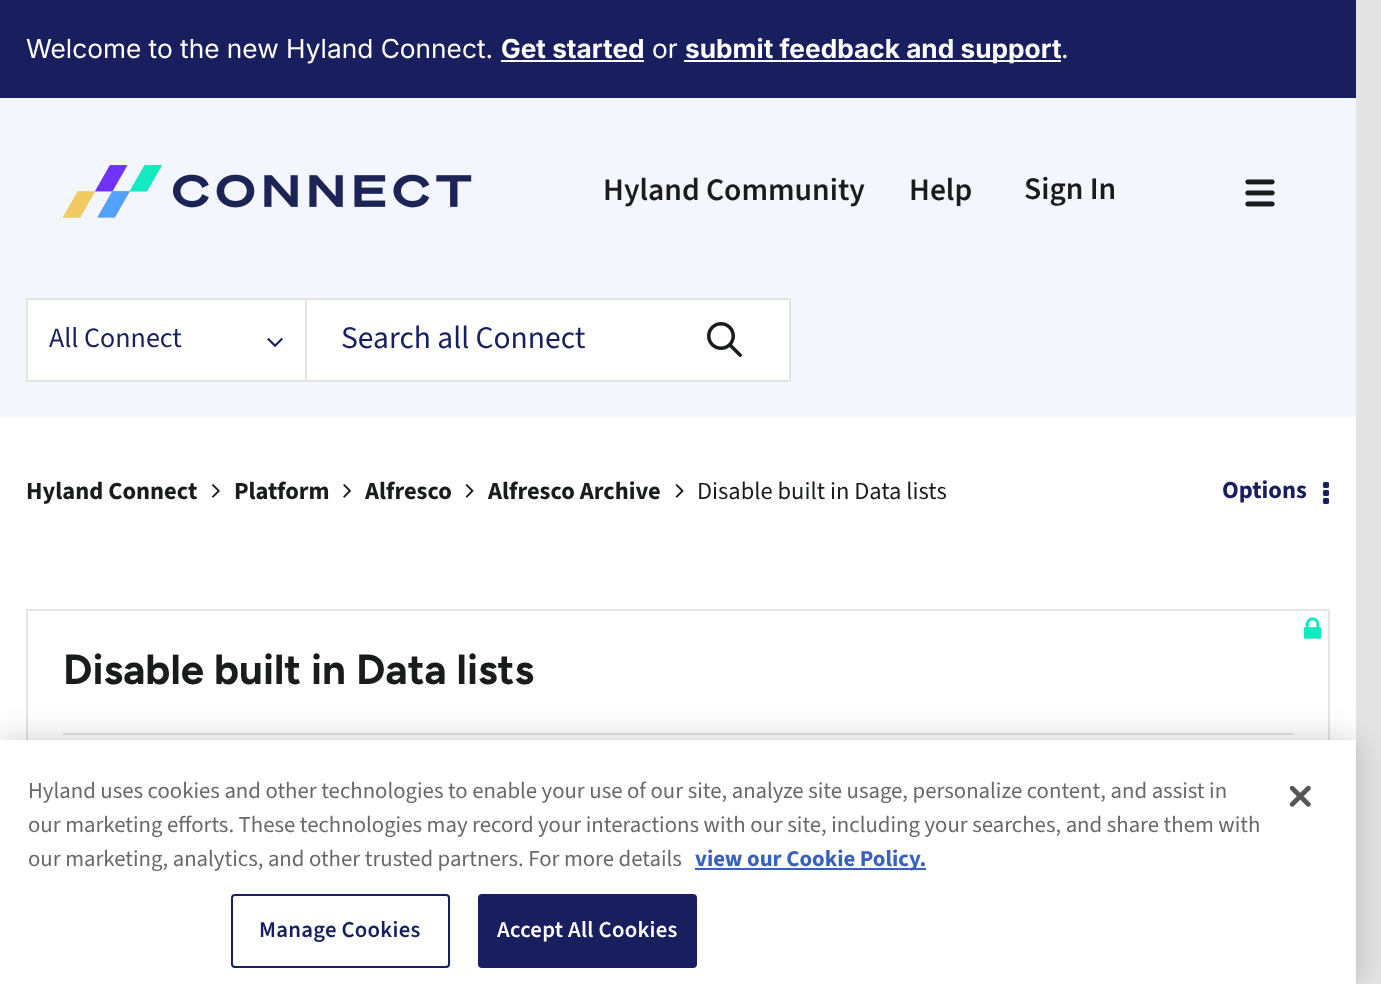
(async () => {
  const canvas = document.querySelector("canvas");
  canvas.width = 1381;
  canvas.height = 984;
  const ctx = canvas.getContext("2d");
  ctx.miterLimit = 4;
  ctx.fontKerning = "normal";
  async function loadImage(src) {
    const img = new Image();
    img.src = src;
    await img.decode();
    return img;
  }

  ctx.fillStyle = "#e4e4e4";
  ctx.fillRect(0, 0, 1381, 984);
  for (const [x, y, w, h, color] of [
    [0, 417, 1356, 323, "#ffffff"],
    [0, 0, 1356, 98, "#191f5e"],
    [501, 60, 143, 2, "#ffffff"],
    [684, 60, 377, 2, "#ffffff"],
    [0, 98, 1356, 319, "#f4f6fe"],
  ]) {
    ctx.fillStyle = color;
    ctx.fillRect(x, y, w, h);
  }
  ctx.drawImage(await loadImage("img/1.png"), 62, 165, 410, 53);
  ctx.drawImage(await loadImage("img/2.png"), 1245, 179, 30, 28);
  for (const [x, y, w, h, color] of [
    [28, 300, 277, 80, "#ffffff"],
    [26, 298, 279, 2, "#e4e4e4"],
    [26, 380, 279, 2, "#e4e4e4"],
    [26, 298, 2, 84, "#e4e4e4"],
  ]) {
    ctx.fillStyle = color;
    ctx.fillRect(x, y, w, h);
  }
  ctx.drawImage(await loadImage("img/3.png"), 267, 338, 16, 9);
  ctx.fillStyle = "#ffffff";
  ctx.beginPath();
  ctx.rect(306, 299, 484, 82);
  ctx.fill();
  ctx.strokeStyle = "#e4e4e4";
  ctx.lineWidth = 2;
  ctx.stroke();
  ctx.drawImage(await loadImage("img/4.png"), 707, 322, 35, 35);
  ctx.drawImage(await loadImage("img/5.png"), 212, 484, 8, 14);
  ctx.drawImage(await loadImage("img/6.png"), 343, 484, 9, 14);
  ctx.drawImage(await loadImage("img/7.png"), 465, 484, 9, 14);
  ctx.drawImage(await loadImage("img/7.png"), 675, 484, 9, 14);
  ctx.drawImage(await loadImage("img/8.png"), 1323, 482, 6, 22);
  ctx.strokeRect(27, 610, 1302, 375);
  ctx.drawImage(await loadImage("img/9.png"), 1303, 617, 19, 22);
  ctx.fillStyle = "#e4e4e4";
  ctx.fillRect(63, 733, 1230, 2);
  ctx.fillStyle = "rgba(0, 0, 0, 0.2)";
  ctx.filter = "blur(16px)";
  ctx.beginPath();
  ctx.rect(0, 740, 1356, 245);
  ctx.fill();
  ctx.filter = "none";
  ctx.fillStyle = "#ffffff";
  ctx.fillRect(0, 740, 1356, 244);
  ctx.fillStyle = "#3860be";
  ctx.fillRect(695, 868, 231, 2);
  ctx.beginPath();
  ctx.roundRect(232, 895, 217, 72, 3);
  ctx.strokeStyle = "#191f5e";
  ctx.stroke();
  ctx.fillStyle = "#191f5e";
  ctx.beginPath();
  ctx.roundRect(479, 895, 217, 72, 3);
  ctx.fill();
  ctx.stroke();
  ctx.drawImage(await loadImage("img/10.png"), 1290, 786, 21, 21);
  ctx.font = "26.25px Inter";
  ctx.fillStyle = "#ffffff";
  ctx.fillText("Welcome to the new Hyland Connect.", 26, 58);
  ctx.font = "bold 26.25px Inter";
  ctx.fillText("Get started", 501, 58);
  ctx.font = "26.25px Inter";
  ctx.fillText("or", 652, 58);
  ctx.font = "bold 26.25px Inter";
  ctx.fillText("submit feedback and support", 685, 58);
  ctx.font = "26.25px Inter";
  ctx.fillText(".", 1061, 58);
  ctx.font = "600 31.5px 'Source Sans 3'";
  ctx.fillStyle = "#191c1a";
  for (const [text, x, y] of [
    ["Hyland Community", 603, 200],
    ["Help", 909, 200],
    ["Sign In", 1024, 199],
  ]) {
    ctx.fillText(text, x, y);
  }
  ctx.font = "28px 'Source Sans 3'";
  ctx.fillStyle = "#191f5e";
  ctx.fillText("All Connect", 49, 347);
  ctx.font = "31.5px 'Source Sans 3'";
  ctx.fillText("Search all Connect", 341, 348);
  ctx.font = "bold 24.5px 'Source Sans 3'";
  ctx.fillStyle = "#191c1a";
  for (const [text, x, y] of [
    ["Hyland Connect", 26, 499],
    ["Platform", 234, 499],
    ["Alfresco", 365, 499],
    ["Alfresco Archive", 488, 499],
  ]) {
    ctx.fillText(text, x, y);
  }
  ctx.font = "24.5px 'Source Sans 3'";
  ctx.fillText("Disable built in Data lists", 697, 499);
  ctx.font = "bold 24.5px 'Source Sans 3'";
  ctx.fillStyle = "#191f5e";
  ctx.fillText("Options", 1222, 498);
  ctx.font = "bold 42px Figtree";
  ctx.fillStyle = "#191c1a";
  ctx.fillText("Disable built in Data lists", 63, 684);
  ctx.font = "22.75px 'Source Sans 3'";
  ctx.fillStyle = "#696969";
  for (const [text, x, y] of [
    ["Hyland uses cookies and other technologies to enable your use of our site, analyze site usage, personalize content, and assist in", 28, 798],
    ["our marketing efforts. These technologies may record your interactions with our site, including your searches, and share them with", 28, 832],
    ["our marketing, analytics, and other trusted partners. For more details", 28, 866],
  ]) {
    ctx.fillText(text, x, y);
  }
  ctx.font = "bold 22.75px 'Source Sans 3'";
  ctx.fillStyle = "#3860be";
  ctx.fillText("view our Cookie Policy.", 695, 866);
  ctx.letterSpacing = "0.25px";
  ctx.font = "600 22.75px 'Source Sans 3'";
  ctx.fillStyle = "#191f5e";
  ctx.fillText("Manage Cookies", 259, 937);
  ctx.fillStyle = "#ffffff";
  ctx.fillText("Accept All Cookies", 497, 937);
})();
